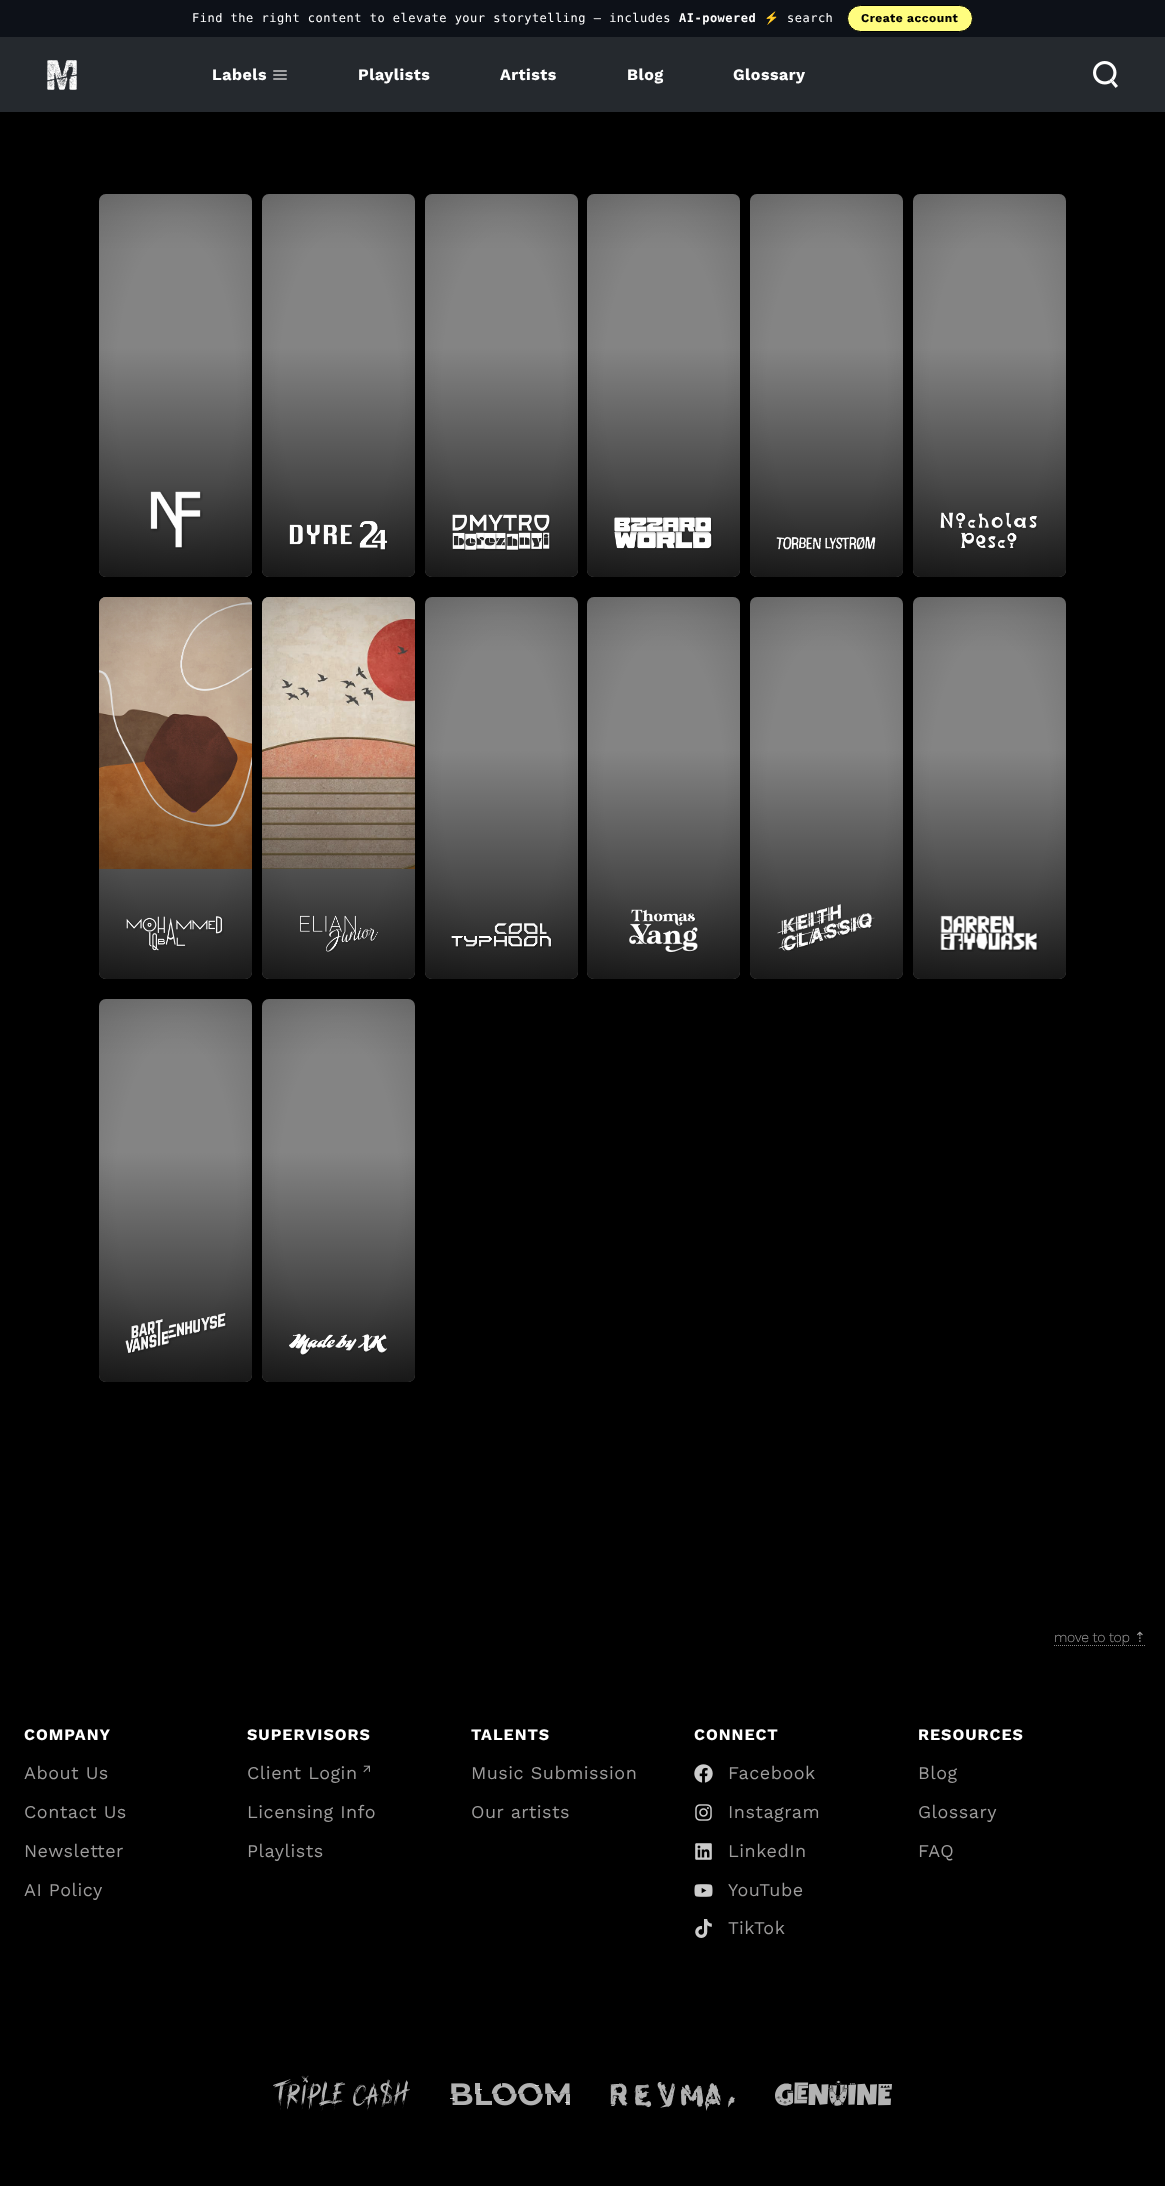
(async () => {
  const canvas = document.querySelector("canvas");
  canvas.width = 1165;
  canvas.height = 2186;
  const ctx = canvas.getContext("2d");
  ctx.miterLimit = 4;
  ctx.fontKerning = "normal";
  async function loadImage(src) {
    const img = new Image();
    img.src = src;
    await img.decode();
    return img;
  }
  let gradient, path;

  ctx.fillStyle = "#000000";
  ctx.fillRect(0, 0, 1165, 2186);
  ctx.fillStyle = "#0d1118";
  ctx.fillRect(0, 0, 1165, 37);
  ctx.fillStyle = "#fffd7f";
  ctx.beginPath();
  ctx.roundRect(847.5, 5.5, 125, 26, 13);
  ctx.fill();
  ctx.strokeStyle = "#000000";
  ctx.stroke();
  ctx.fillStyle = "#25292e";
  ctx.fillRect(0, 37, 1165, 75);
  ctx.drawImage(await loadImage("img/1.png"), 47, 60, 30, 30);
  ctx.drawImage(await loadImage("img/2.png"), 273, 70, 14, 10);
  ctx.drawImage(await loadImage("img/3.png"), 1093, 61, 25, 27);
  ctx.fillStyle = "#848484";
  ctx.beginPath();
  ctx.roundRect(99, 194, 153, 383, 7);
  ctx.fill();
  gradient = ctx.createRadialGradient(176, 153.83, 0, 176, 153.83, 108);
  gradient.addColorStop(0.55, "rgba(0, 0, 0, 0)");
  gradient.addColorStop(1, "rgba(0, 0, 0, 0.12)");
  ctx.fillStyle = gradient;
  ctx.beginPath();
  ctx.roundRect(99, 194, 153, 383, 7);
  ctx.save();
  ctx.clip();
  ctx.scale(1, 271 / 108);
  ctx.fillRect(0, 0, 1165, 872);
  ctx.restore();
  gradient = ctx.createLinearGradient(176, 194, 176, 251);
  gradient.addColorStop(0, "rgba(0, 0, 0, 0.12)");
  gradient.addColorStop(0.4, "rgba(0, 0, 0, 0.05)");
  gradient.addColorStop(1, "rgba(0, 0, 0, 0)");
  ctx.fillStyle = gradient;
  ctx.beginPath();
  ctx.roundRect(99, 194, 153, 57, [7, 7, 0, 0]);
  ctx.fill();
  gradient = ctx.createLinearGradient(176, 577, 176, 347);
  gradient.addColorStop(0, "rgba(0, 0, 0, 0.8)");
  gradient.addColorStop(0.4, "rgba(0, 0, 0, 0.45)");
  gradient.addColorStop(1, "rgba(0, 0, 0, 0)");
  ctx.fillStyle = gradient;
  ctx.beginPath();
  ctx.roundRect(99, 347, 153, 230, [0, 0, 7, 7]);
  ctx.fill();
  ctx.drawImage(await loadImage("img/4.png"), 150, 491, 53, 58);
  ctx.fillStyle = "#848484";
  ctx.beginPath();
  ctx.roundRect(262, 194, 153, 383, 7);
  ctx.fill();
  gradient = ctx.createRadialGradient(339, 153.83, 0, 339, 153.83, 108);
  gradient.addColorStop(0.55, "rgba(0, 0, 0, 0)");
  gradient.addColorStop(1, "rgba(0, 0, 0, 0.12)");
  ctx.fillStyle = gradient;
  ctx.beginPath();
  ctx.roundRect(262, 194, 153, 383, 7);
  ctx.save();
  ctx.clip();
  ctx.scale(1, 271 / 108);
  ctx.fillRect(0, 0, 1165, 872);
  ctx.restore();
  gradient = ctx.createLinearGradient(339, 194, 339, 251);
  gradient.addColorStop(0, "rgba(0, 0, 0, 0.12)");
  gradient.addColorStop(0.4, "rgba(0, 0, 0, 0.05)");
  gradient.addColorStop(1, "rgba(0, 0, 0, 0)");
  ctx.fillStyle = gradient;
  ctx.beginPath();
  ctx.roundRect(262, 194, 153, 57, [7, 7, 0, 0]);
  ctx.fill();
  gradient = ctx.createLinearGradient(339, 577, 339, 347);
  gradient.addColorStop(0, "rgba(0, 0, 0, 0.8)");
  gradient.addColorStop(0.4, "rgba(0, 0, 0, 0.45)");
  gradient.addColorStop(1, "rgba(0, 0, 0, 0)");
  ctx.fillStyle = gradient;
  ctx.beginPath();
  ctx.roundRect(262, 347, 153, 230, [0, 0, 7, 7]);
  ctx.fill();
  ctx.drawImage(await loadImage("img/5.png"), 289, 521, 99, 30);
  ctx.fillStyle = "#848484";
  ctx.beginPath();
  ctx.roundRect(425, 194, 153, 383, 7);
  ctx.fill();
  gradient = ctx.createRadialGradient(502, 153.83, 0, 502, 153.83, 108);
  gradient.addColorStop(0.55, "rgba(0, 0, 0, 0)");
  gradient.addColorStop(1, "rgba(0, 0, 0, 0.12)");
  ctx.fillStyle = gradient;
  ctx.beginPath();
  ctx.roundRect(425, 194, 153, 383, 7);
  ctx.save();
  ctx.clip();
  ctx.scale(1, 271 / 108);
  ctx.fillRect(0, 0, 1165, 872);
  ctx.restore();
  gradient = ctx.createLinearGradient(502, 194, 502, 251);
  gradient.addColorStop(0, "rgba(0, 0, 0, 0.12)");
  gradient.addColorStop(0.4, "rgba(0, 0, 0, 0.05)");
  gradient.addColorStop(1, "rgba(0, 0, 0, 0)");
  ctx.fillStyle = gradient;
  ctx.beginPath();
  ctx.roundRect(425, 194, 153, 57, [7, 7, 0, 0]);
  ctx.fill();
  gradient = ctx.createLinearGradient(502, 577, 502, 347);
  gradient.addColorStop(0, "rgba(0, 0, 0, 0.8)");
  gradient.addColorStop(0.4, "rgba(0, 0, 0, 0.45)");
  gradient.addColorStop(1, "rgba(0, 0, 0, 0)");
  ctx.fillStyle = gradient;
  ctx.beginPath();
  ctx.roundRect(425, 347, 153, 230, [0, 0, 7, 7]);
  ctx.fill();
  ctx.drawImage(await loadImage("img/6.png"), 452, 514, 99, 37);
  ctx.fillStyle = "#848484";
  ctx.beginPath();
  ctx.roundRect(587, 194, 153, 383, 7);
  ctx.fill();
  gradient = ctx.createRadialGradient(664, 153.83, 0, 664, 153.83, 108);
  gradient.addColorStop(0.55, "rgba(0, 0, 0, 0)");
  gradient.addColorStop(1, "rgba(0, 0, 0, 0.12)");
  ctx.fillStyle = gradient;
  ctx.beginPath();
  ctx.roundRect(587, 194, 153, 383, 7);
  ctx.save();
  ctx.clip();
  ctx.scale(1, 271 / 108);
  ctx.fillRect(0, 0, 1165, 872);
  ctx.restore();
  gradient = ctx.createLinearGradient(664, 194, 664, 251);
  gradient.addColorStop(0, "rgba(0, 0, 0, 0.12)");
  gradient.addColorStop(0.4, "rgba(0, 0, 0, 0.05)");
  gradient.addColorStop(1, "rgba(0, 0, 0, 0)");
  ctx.fillStyle = gradient;
  ctx.beginPath();
  ctx.roundRect(587, 194, 153, 57, [7, 7, 0, 0]);
  ctx.fill();
  gradient = ctx.createLinearGradient(664, 577, 664, 347);
  gradient.addColorStop(0, "rgba(0, 0, 0, 0.8)");
  gradient.addColorStop(0.4, "rgba(0, 0, 0, 0.45)");
  gradient.addColorStop(1, "rgba(0, 0, 0, 0)");
  ctx.fillStyle = gradient;
  ctx.beginPath();
  ctx.roundRect(587, 347, 153, 230, [0, 0, 7, 7]);
  ctx.fill();
  ctx.drawImage(await loadImage("img/7.png"), 614, 517, 99, 33);
  ctx.fillStyle = "#848484";
  ctx.beginPath();
  ctx.roundRect(750, 194, 153, 383, 7);
  ctx.fill();
  gradient = ctx.createRadialGradient(827, 153.83, 0, 827, 153.83, 108);
  gradient.addColorStop(0.55, "rgba(0, 0, 0, 0)");
  gradient.addColorStop(1, "rgba(0, 0, 0, 0.12)");
  ctx.fillStyle = gradient;
  ctx.beginPath();
  ctx.roundRect(750, 194, 153, 383, 7);
  ctx.save();
  ctx.clip();
  ctx.scale(1, 271 / 108);
  ctx.fillRect(0, 0, 1165, 872);
  ctx.restore();
  gradient = ctx.createLinearGradient(827, 194, 827, 251);
  gradient.addColorStop(0, "rgba(0, 0, 0, 0.12)");
  gradient.addColorStop(0.4, "rgba(0, 0, 0, 0.05)");
  gradient.addColorStop(1, "rgba(0, 0, 0, 0)");
  ctx.fillStyle = gradient;
  ctx.beginPath();
  ctx.roundRect(750, 194, 153, 57, [7, 7, 0, 0]);
  ctx.fill();
  gradient = ctx.createLinearGradient(827, 577, 827, 347);
  gradient.addColorStop(0, "rgba(0, 0, 0, 0.8)");
  gradient.addColorStop(0.4, "rgba(0, 0, 0, 0.45)");
  gradient.addColorStop(1, "rgba(0, 0, 0, 0)");
  ctx.fillStyle = gradient;
  ctx.beginPath();
  ctx.roundRect(750, 347, 153, 230, [0, 0, 7, 7]);
  ctx.fill();
  ctx.drawImage(await loadImage("img/8.png"), 776, 536, 100, 14);
  ctx.fillStyle = "#848484";
  ctx.beginPath();
  ctx.roundRect(913, 194, 153, 383, 7);
  ctx.fill();
  gradient = ctx.createRadialGradient(990, 153.83, 0, 990, 153.83, 108);
  gradient.addColorStop(0.55, "rgba(0, 0, 0, 0)");
  gradient.addColorStop(1, "rgba(0, 0, 0, 0.12)");
  ctx.fillStyle = gradient;
  ctx.beginPath();
  ctx.roundRect(913, 194, 153, 383, 7);
  ctx.save();
  ctx.clip();
  ctx.scale(1, 271 / 108);
  ctx.fillRect(0, 0, 1165, 872);
  ctx.restore();
  gradient = ctx.createLinearGradient(990, 194, 990, 251);
  gradient.addColorStop(0, "rgba(0, 0, 0, 0.12)");
  gradient.addColorStop(0.4, "rgba(0, 0, 0, 0.05)");
  gradient.addColorStop(1, "rgba(0, 0, 0, 0)");
  ctx.fillStyle = gradient;
  ctx.beginPath();
  ctx.roundRect(913, 194, 153, 57, [7, 7, 0, 0]);
  ctx.fill();
  gradient = ctx.createLinearGradient(990, 577, 990, 347);
  gradient.addColorStop(0, "rgba(0, 0, 0, 0.8)");
  gradient.addColorStop(0.4, "rgba(0, 0, 0, 0.45)");
  gradient.addColorStop(1, "rgba(0, 0, 0, 0)");
  ctx.fillStyle = gradient;
  ctx.beginPath();
  ctx.roundRect(913, 347, 153, 230, [0, 0, 7, 7]);
  ctx.fill();
  ctx.drawImage(await loadImage("img/9.png"), 940, 512, 98, 38);
  ctx.fillStyle = "#848484";
  ctx.beginPath();
  ctx.roundRect(99, 597, 153, 382, 7);
  ctx.fill();
  ctx.drawImage(await loadImage("img/10.png"), 99, 597, 153, 272);
  ctx.fillStyle = "rgba(128, 128, 128, 0.08)";
  ctx.beginPath();
  ctx.roundRect(99, 597, 153, 382, 7);
  ctx.fill();
  gradient = ctx.createRadialGradient(176, 315.2, 0, 176, 315.2, 108);
  gradient.addColorStop(0.55, "rgba(0, 0, 0, 0)");
  gradient.addColorStop(1, "rgba(0, 0, 0, 0.12)");
  ctx.fillStyle = gradient;
  ctx.beginPath();
  ctx.roundRect(99, 597, 153, 382, 7);
  ctx.save();
  ctx.clip();
  ctx.scale(1, 270 / 108);
  ctx.fillRect(0, 0, 1165, 875);
  ctx.restore();
  gradient = ctx.createLinearGradient(176, 597, 176, 654);
  gradient.addColorStop(0, "rgba(0, 0, 0, 0.12)");
  gradient.addColorStop(0.4, "rgba(0, 0, 0, 0.05)");
  gradient.addColorStop(1, "rgba(0, 0, 0, 0)");
  ctx.fillStyle = gradient;
  ctx.beginPath();
  ctx.roundRect(99, 597, 153, 57, [7, 7, 0, 0]);
  ctx.fill();
  gradient = ctx.createLinearGradient(176, 979, 176, 750);
  gradient.addColorStop(0, "rgba(0, 0, 0, 0.8)");
  gradient.addColorStop(0.4, "rgba(0, 0, 0, 0.45)");
  gradient.addColorStop(1, "rgba(0, 0, 0, 0)");
  ctx.fillStyle = gradient;
  ctx.beginPath();
  ctx.roundRect(99, 750, 153, 229, [0, 0, 7, 7]);
  ctx.fill();
  ctx.drawImage(await loadImage("img/11.png"), 126, 916, 98, 35);
  ctx.fillStyle = "#848484";
  ctx.beginPath();
  ctx.roundRect(262, 597, 153, 382, 7);
  ctx.fill();
  ctx.drawImage(await loadImage("img/12.png"), 262, 597, 153, 272);
  ctx.fillStyle = "rgba(128, 128, 128, 0.08)";
  ctx.beginPath();
  ctx.roundRect(262, 597, 153, 382, 7);
  ctx.fill();
  gradient = ctx.createRadialGradient(339, 315.2, 0, 339, 315.2, 108);
  gradient.addColorStop(0.55, "rgba(0, 0, 0, 0)");
  gradient.addColorStop(1, "rgba(0, 0, 0, 0.12)");
  ctx.fillStyle = gradient;
  ctx.beginPath();
  ctx.roundRect(262, 597, 153, 382, 7);
  ctx.save();
  ctx.clip();
  ctx.scale(1, 270 / 108);
  ctx.fillRect(0, 0, 1165, 875);
  ctx.restore();
  gradient = ctx.createLinearGradient(339, 597, 339, 654);
  gradient.addColorStop(0, "rgba(0, 0, 0, 0.12)");
  gradient.addColorStop(0.4, "rgba(0, 0, 0, 0.05)");
  gradient.addColorStop(1, "rgba(0, 0, 0, 0)");
  ctx.fillStyle = gradient;
  ctx.beginPath();
  ctx.roundRect(262, 597, 153, 57, [7, 7, 0, 0]);
  ctx.fill();
  gradient = ctx.createLinearGradient(339, 979, 339, 750);
  gradient.addColorStop(0, "rgba(0, 0, 0, 0.8)");
  gradient.addColorStop(0.4, "rgba(0, 0, 0, 0.45)");
  gradient.addColorStop(1, "rgba(0, 0, 0, 0)");
  ctx.fillStyle = gradient;
  ctx.beginPath();
  ctx.roundRect(262, 750, 153, 229, [0, 0, 7, 7]);
  ctx.fill();
  ctx.drawImage(await loadImage("img/13.png"), 300, 915, 78, 37);
  ctx.fillStyle = "#848484";
  ctx.beginPath();
  ctx.roundRect(425, 597, 153, 382, 7);
  ctx.fill();
  gradient = ctx.createRadialGradient(502, 315.2, 0, 502, 315.2, 108);
  gradient.addColorStop(0.55, "rgba(0, 0, 0, 0)");
  gradient.addColorStop(1, "rgba(0, 0, 0, 0.12)");
  ctx.fillStyle = gradient;
  ctx.beginPath();
  ctx.roundRect(425, 597, 153, 382, 7);
  ctx.save();
  ctx.clip();
  ctx.scale(1, 270 / 108);
  ctx.fillRect(0, 0, 1165, 875);
  ctx.restore();
  gradient = ctx.createLinearGradient(502, 597, 502, 654);
  gradient.addColorStop(0, "rgba(0, 0, 0, 0.12)");
  gradient.addColorStop(0.4, "rgba(0, 0, 0, 0.05)");
  gradient.addColorStop(1, "rgba(0, 0, 0, 0)");
  ctx.fillStyle = gradient;
  ctx.beginPath();
  ctx.roundRect(425, 597, 153, 57, [7, 7, 0, 0]);
  ctx.fill();
  gradient = ctx.createLinearGradient(502, 979, 502, 750);
  gradient.addColorStop(0, "rgba(0, 0, 0, 0.8)");
  gradient.addColorStop(0.4, "rgba(0, 0, 0, 0.45)");
  gradient.addColorStop(1, "rgba(0, 0, 0, 0)");
  ctx.fillStyle = gradient;
  ctx.beginPath();
  ctx.roundRect(425, 750, 153, 229, [0, 0, 7, 7]);
  ctx.fill();
  ctx.drawImage(await loadImage("img/14.png"), 451, 923, 101, 25);
  ctx.fillStyle = "#848484";
  ctx.beginPath();
  ctx.roundRect(587, 597, 153, 382, 7);
  ctx.fill();
  gradient = ctx.createRadialGradient(664, 315.2, 0, 664, 315.2, 108);
  gradient.addColorStop(0.55, "rgba(0, 0, 0, 0)");
  gradient.addColorStop(1, "rgba(0, 0, 0, 0.12)");
  ctx.fillStyle = gradient;
  ctx.beginPath();
  ctx.roundRect(587, 597, 153, 382, 7);
  ctx.save();
  ctx.clip();
  ctx.scale(1, 270 / 108);
  ctx.fillRect(0, 0, 1165, 875);
  ctx.restore();
  gradient = ctx.createLinearGradient(664, 597, 664, 654);
  gradient.addColorStop(0, "rgba(0, 0, 0, 0.12)");
  gradient.addColorStop(0.4, "rgba(0, 0, 0, 0.05)");
  gradient.addColorStop(1, "rgba(0, 0, 0, 0)");
  ctx.fillStyle = gradient;
  ctx.beginPath();
  ctx.roundRect(587, 597, 153, 57, [7, 7, 0, 0]);
  ctx.fill();
  gradient = ctx.createLinearGradient(664, 979, 664, 750);
  gradient.addColorStop(0, "rgba(0, 0, 0, 0.8)");
  gradient.addColorStop(0.4, "rgba(0, 0, 0, 0.45)");
  gradient.addColorStop(1, "rgba(0, 0, 0, 0)");
  ctx.fillStyle = gradient;
  ctx.beginPath();
  ctx.roundRect(587, 750, 153, 229, [0, 0, 7, 7]);
  ctx.fill();
  ctx.drawImage(await loadImage("img/15.png"), 629, 909, 70, 44);
  ctx.fillStyle = "#848484";
  ctx.beginPath();
  ctx.roundRect(750, 597, 153, 382, 7);
  ctx.fill();
  gradient = ctx.createRadialGradient(827, 315.2, 0, 827, 315.2, 108);
  gradient.addColorStop(0.55, "rgba(0, 0, 0, 0)");
  gradient.addColorStop(1, "rgba(0, 0, 0, 0.12)");
  ctx.fillStyle = gradient;
  ctx.beginPath();
  ctx.roundRect(750, 597, 153, 382, 7);
  ctx.save();
  ctx.clip();
  ctx.scale(1, 270 / 108);
  ctx.fillRect(0, 0, 1165, 875);
  ctx.restore();
  gradient = ctx.createLinearGradient(827, 597, 827, 654);
  gradient.addColorStop(0, "rgba(0, 0, 0, 0.12)");
  gradient.addColorStop(0.4, "rgba(0, 0, 0, 0.05)");
  gradient.addColorStop(1, "rgba(0, 0, 0, 0)");
  ctx.fillStyle = gradient;
  ctx.beginPath();
  ctx.roundRect(750, 597, 153, 57, [7, 7, 0, 0]);
  ctx.fill();
  gradient = ctx.createLinearGradient(827, 979, 827, 750);
  gradient.addColorStop(0, "rgba(0, 0, 0, 0.8)");
  gradient.addColorStop(0.4, "rgba(0, 0, 0, 0.45)");
  gradient.addColorStop(1, "rgba(0, 0, 0, 0)");
  ctx.fillStyle = gradient;
  ctx.beginPath();
  ctx.roundRect(750, 750, 153, 229, [0, 0, 7, 7]);
  ctx.fill();
  ctx.drawImage(await loadImage("img/16.png"), 777, 904, 98, 47);
  ctx.fillStyle = "#848484";
  ctx.beginPath();
  ctx.roundRect(913, 597, 153, 382, 7);
  ctx.fill();
  gradient = ctx.createRadialGradient(990, 315.2, 0, 990, 315.2, 108);
  gradient.addColorStop(0.55, "rgba(0, 0, 0, 0)");
  gradient.addColorStop(1, "rgba(0, 0, 0, 0.12)");
  ctx.fillStyle = gradient;
  ctx.beginPath();
  ctx.roundRect(913, 597, 153, 382, 7);
  ctx.save();
  ctx.clip();
  ctx.scale(1, 270 / 108);
  ctx.fillRect(0, 0, 1165, 875);
  ctx.restore();
  gradient = ctx.createLinearGradient(990, 597, 990, 654);
  gradient.addColorStop(0, "rgba(0, 0, 0, 0.12)");
  gradient.addColorStop(0.4, "rgba(0, 0, 0, 0.05)");
  gradient.addColorStop(1, "rgba(0, 0, 0, 0)");
  ctx.fillStyle = gradient;
  ctx.beginPath();
  ctx.roundRect(913, 597, 153, 57, [7, 7, 0, 0]);
  ctx.fill();
  gradient = ctx.createLinearGradient(990, 979, 990, 750);
  gradient.addColorStop(0, "rgba(0, 0, 0, 0.8)");
  gradient.addColorStop(0.4, "rgba(0, 0, 0, 0.45)");
  gradient.addColorStop(1, "rgba(0, 0, 0, 0)");
  ctx.fillStyle = gradient;
  ctx.beginPath();
  ctx.roundRect(913, 750, 153, 229, [0, 0, 7, 7]);
  ctx.fill();
  ctx.drawImage(await loadImage("img/17.png"), 940, 915, 99, 37);
  ctx.fillStyle = "#848484";
  ctx.beginPath();
  ctx.roundRect(99, 999, 153, 383, 7);
  ctx.fill();
  gradient = ctx.createRadialGradient(176, 474.64, 0, 176, 474.64, 108);
  gradient.addColorStop(0.55, "rgba(0, 0, 0, 0)");
  gradient.addColorStop(1, "rgba(0, 0, 0, 0.12)");
  ctx.fillStyle = gradient;
  ctx.beginPath();
  ctx.roundRect(99, 999, 153, 383, 7);
  ctx.save();
  ctx.clip();
  ctx.scale(1, 271 / 108);
  ctx.fillRect(0, 0, 1165, 872);
  ctx.restore();
  gradient = ctx.createLinearGradient(176, 999, 176, 1057);
  gradient.addColorStop(0, "rgba(0, 0, 0, 0.12)");
  gradient.addColorStop(0.4, "rgba(0, 0, 0, 0.05)");
  gradient.addColorStop(1, "rgba(0, 0, 0, 0)");
  ctx.fillStyle = gradient;
  ctx.beginPath();
  ctx.roundRect(99, 999, 153, 58, [7, 7, 0, 0]);
  ctx.fill();
  gradient = ctx.createLinearGradient(176, 1382, 176, 1152);
  gradient.addColorStop(0, "rgba(0, 0, 0, 0.8)");
  gradient.addColorStop(0.4, "rgba(0, 0, 0, 0.45)");
  gradient.addColorStop(1, "rgba(0, 0, 0, 0)");
  ctx.fillStyle = gradient;
  ctx.beginPath();
  ctx.roundRect(99, 1152, 153, 230, [0, 0, 7, 7]);
  ctx.fill();
  ctx.drawImage(await loadImage("img/18.png"), 125, 1313, 102, 41);
  ctx.fillStyle = "#848484";
  ctx.beginPath();
  ctx.roundRect(262, 999, 153, 383, 7);
  ctx.fill();
  gradient = ctx.createRadialGradient(339, 474.64, 0, 339, 474.64, 108);
  gradient.addColorStop(0.55, "rgba(0, 0, 0, 0)");
  gradient.addColorStop(1, "rgba(0, 0, 0, 0.12)");
  ctx.fillStyle = gradient;
  ctx.beginPath();
  ctx.roundRect(262, 999, 153, 383, 7);
  ctx.save();
  ctx.clip();
  ctx.scale(1, 271 / 108);
  ctx.fillRect(0, 0, 1165, 872);
  ctx.restore();
  gradient = ctx.createLinearGradient(339, 999, 339, 1057);
  gradient.addColorStop(0, "rgba(0, 0, 0, 0.12)");
  gradient.addColorStop(0.4, "rgba(0, 0, 0, 0.05)");
  gradient.addColorStop(1, "rgba(0, 0, 0, 0)");
  ctx.fillStyle = gradient;
  ctx.beginPath();
  ctx.roundRect(262, 999, 153, 58, [7, 7, 0, 0]);
  ctx.fill();
  gradient = ctx.createLinearGradient(339, 1382, 339, 1152);
  gradient.addColorStop(0, "rgba(0, 0, 0, 0.8)");
  gradient.addColorStop(0.4, "rgba(0, 0, 0, 0.45)");
  gradient.addColorStop(1, "rgba(0, 0, 0, 0)");
  ctx.fillStyle = gradient;
  ctx.beginPath();
  ctx.roundRect(262, 1152, 153, 230, [0, 0, 7, 7]);
  ctx.fill();
  ctx.drawImage(await loadImage("img/19.png"), 289, 1333, 98, 23);
  path = new Path2D("M1054 1645.5H1145");
  ctx.strokeStyle = "#828282";
  ctx.setLineDash([1, 1]);
  ctx.stroke(path);
  ctx.drawImage(await loadImage("img/20.png"), 363, 1765, 7, 8);
  ctx.drawImage(await loadImage("img/21.png"), 694, 1764, 19, 19);
  ctx.drawImage(await loadImage("img/22.png"), 695, 1804, 17, 17);
  ctx.drawImage(await loadImage("img/23.png"), 695, 1843, 17, 17);
  ctx.drawImage(await loadImage("img/24.png"), 694, 1884, 19, 13);
  ctx.drawImage(await loadImage("img/25.png"), 695, 1919, 17, 19);
  ctx.drawImage(await loadImage("img/26.png"), 273, 2075, 137, 36);
  ctx.drawImage(await loadImage("img/27.png"), 450, 2083, 120, 23);
  ctx.drawImage(await loadImage("img/28.png"), 610, 2082, 125, 29);
  ctx.drawImage(await loadImage("img/29.png"), 775, 2080, 117, 26);
  ctx.letterSpacing = "0.5px";
  ctx.font = "12px DejaVu Sans Mono";
  ctx.fillStyle = "#ffffff";
  ctx.fillText("Find the right content to elevate your storytelling — includes", 192, 22);
  ctx.font = "bold 12px DejaVu Sans Mono";
  ctx.fillText("AI-powered", 679, 22);
  ctx.font = "12px Noto Color Emoji";
  ctx.fillText("⚡️", 764, 22);
  ctx.font = "12px DejaVu Sans Mono";
  ctx.fillText("search", 787, 22);
  ctx.font = "bold 12px Work Sans";
  ctx.fillStyle = "#000000";
  ctx.fillText("Create account", 861, 22);
  ctx.font = "bold 16px Work Sans";
  ctx.fillStyle = "#ffffff";
  for (const [text, x, y] of [
    ["Labels", 212, 80],
    ["Playlists", 358, 80],
    ["Artists", 500, 80],
    ["Blog", 627, 80],
    ["Glossary", 733, 80],
  ]) {
    ctx.fillText(text, x, y);
  }
  ctx.letterSpacing = "-0.4px";
  ctx.font = "300 14px Work Sans";
  ctx.fillStyle = "#9d9c9c";
  ctx.fillText("move to top", 1054, 1642);
  ctx.font = "14px DejaVu Sans";
  ctx.fillText("⇡", 1134, 1642);
  ctx.letterSpacing = "1px";
  ctx.font = "bold 16px Work Sans";
  ctx.fillStyle = "#ffffff";
  ctx.fillText("COMPANY", 24, 1740);
  ctx.letterSpacing = "0.5px";
  ctx.font = "18px Work Sans";
  ctx.fillStyle = "#9d9c9c";
  for (const [text, x, y] of [
    ["About Us", 24, 1779],
    ["Contact Us", 24, 1818],
    ["Newsletter", 24, 1857],
    ["AI Policy", 24, 1896],
  ]) {
    ctx.fillText(text, x, y);
  }
  ctx.letterSpacing = "1px";
  ctx.font = "bold 16px Work Sans";
  ctx.fillStyle = "#ffffff";
  ctx.fillText("SUPERVISORS", 247, 1740);
  ctx.letterSpacing = "0.5px";
  ctx.font = "18px Work Sans";
  ctx.fillStyle = "#9d9c9c";
  for (const [text, x, y] of [
    ["Client Login", 247, 1779],
    ["Licensing Info", 247, 1818],
    ["Playlists", 247, 1857],
  ]) {
    ctx.fillText(text, x, y);
  }
  ctx.letterSpacing = "1px";
  ctx.font = "bold 16px Work Sans";
  ctx.fillStyle = "#ffffff";
  ctx.fillText("TALENTS", 471, 1740);
  ctx.letterSpacing = "0.5px";
  ctx.font = "18px Work Sans";
  ctx.fillStyle = "#9d9c9c";
  ctx.fillText("Music Submission", 471, 1779);
  ctx.fillText("Our artists", 471, 1818);
  ctx.letterSpacing = "1px";
  ctx.font = "bold 16px Work Sans";
  ctx.fillStyle = "#ffffff";
  ctx.fillText("CONNECT", 694, 1740);
  ctx.letterSpacing = "0.5px";
  ctx.font = "18px Work Sans";
  ctx.fillStyle = "#9d9c9c";
  for (const [text, x, y] of [
    ["Facebook", 728, 1779],
    ["Instagram", 728, 1818],
    ["LinkedIn", 728, 1857],
    ["YouTube", 728, 1896],
    ["TikTok", 728, 1934],
  ]) {
    ctx.fillText(text, x, y);
  }
  ctx.letterSpacing = "1px";
  ctx.font = "bold 16px Work Sans";
  ctx.fillStyle = "#ffffff";
  ctx.fillText("RESOURCES", 918, 1740);
  ctx.letterSpacing = "0.5px";
  ctx.font = "18px Work Sans";
  ctx.fillStyle = "#9d9c9c";
  for (const [text, x, y] of [
    ["Blog", 918, 1779],
    ["Glossary", 918, 1818],
    ["FAQ", 918, 1857],
  ]) {
    ctx.fillText(text, x, y);
  }
})();
